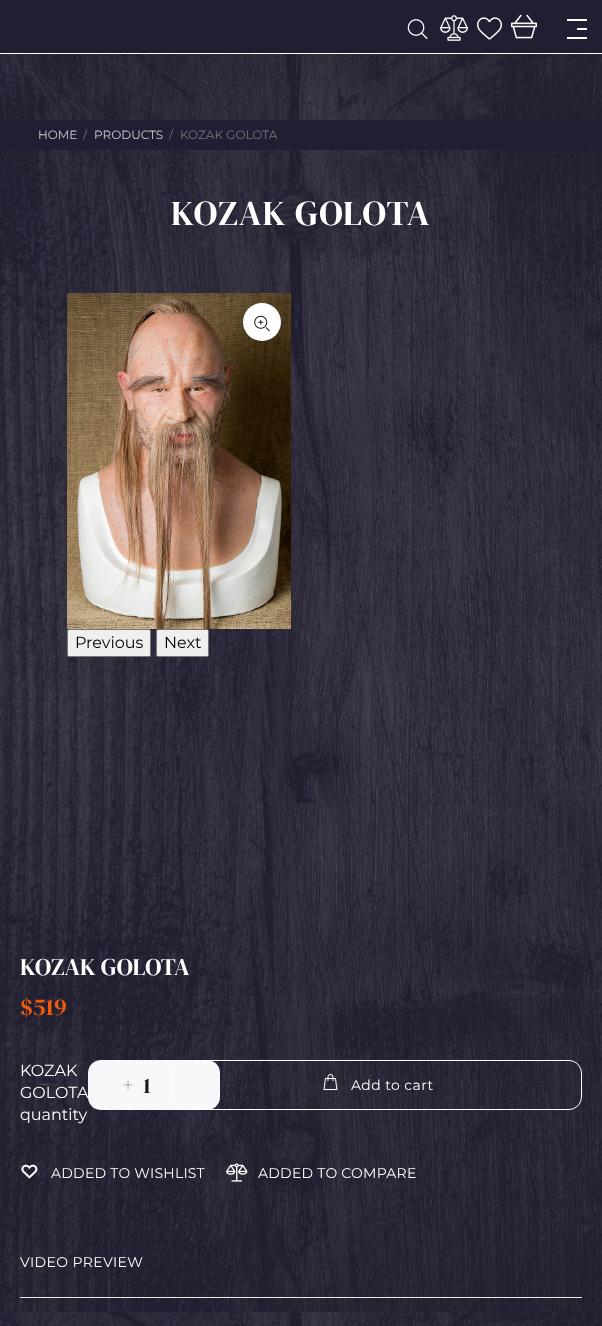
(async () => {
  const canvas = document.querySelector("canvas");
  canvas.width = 602;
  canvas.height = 1326;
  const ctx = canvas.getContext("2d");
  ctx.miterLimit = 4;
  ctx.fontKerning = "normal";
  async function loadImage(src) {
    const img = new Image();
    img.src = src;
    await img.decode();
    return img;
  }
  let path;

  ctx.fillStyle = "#ffffff";
  ctx.fillRect(0, 0, 602, 1326);
  ctx.drawImage(await loadImage("img/1.png"), 0, 54, 602, 1272);
  ctx.fillStyle = "#211e33";
  ctx.fillRect(0, 0, 602, 53);
  ctx.drawImage(await loadImage("img/2.png"), 407, 19, 21, 20);
  ctx.drawImage(await loadImage("img/3.png"), 440, 15, 28, 26);
  ctx.drawImage(await loadImage("img/4.png"), 477, 17, 25, 23);
  ctx.drawImage(await loadImage("img/5.png"), 511, 14, 26, 25);
  for (const [x, y, w, h, color] of [
    [567, 19, 20, 2, "#ffffff"],
    [577, 28, 10, 2, "#ffffff"],
    [567, 37, 20, 2, "#ffffff"],
    [0, 120, 602, 30, "#211e33"],
  ]) {
    ctx.fillStyle = color;
    ctx.fillRect(x, y, w, h);
  }
  ctx.drawImage(await loadImage("img/6.png"), 67, 293, 224, 336);
  ctx.fillStyle = "#ffffff";
  ctx.beginPath();
  ctx.arc(262, 322, 19, 0, Math.PI * 2);
  ctx.fill();
  ctx.drawImage(await loadImage("img/7.png"), 254, 315, 16, 17);
  ctx.fillStyle = "#efefef";
  ctx.beginPath();
  ctx.roundRect(67.5, 629.5, 83, 27, 1.5);
  ctx.fill();
  ctx.strokeStyle = "#767676";
  ctx.stroke();
  ctx.beginPath();
  ctx.roundRect(156.5, 629.5, 52, 27, 1.5);
  ctx.fill();
  ctx.stroke();
  ctx.fillStyle = "#777777";
  path = new Path2D("M49.5 1084.5V1085H40.5L41 1084.5Z");
  ctx.fill(path);
  ctx.drawImage(await loadImage("img/10.png"), 21, 1164, 17, 15);
  ctx.drawImage(await loadImage("img/11.png"), 226, 1163, 22, 19);
  ctx.fillStyle = "#e9e7e7";
  ctx.fillRect(20, 1297, 562, 1);
  ctx.font = "12px Montserrat";
  ctx.fillStyle = "#cccccc";
  ctx.fillText("HOME", 38, 139);
  ctx.fillStyle = "#777777";
  ctx.fillText("/", 83, 139);
  ctx.fillStyle = "#cccccc";
  ctx.fillText("PRODUCTS", 94, 139);
  ctx.fillStyle = "#777777";
  ctx.fillText("/", 169, 139);
  ctx.fillText("KOZAK GOLOTA", 180, 139);
  ctx.letterSpacing = "1px";
  ctx.font = "35px DM Serif Display";
  ctx.fillStyle = "#ffffff";
  ctx.fillText("KOZAK GOLOTA", 171, 225);
  ctx.letterSpacing = "0px";
  ctx.font = "16px Montserrat";
  ctx.fillStyle = "#000000";
  ctx.fillText("Previous", 75, 648);
  ctx.fillText("Next", 164, 648);
  ctx.font = "24px DM Serif Display";
  ctx.fillStyle = "#ffffff";
  ctx.fillText("KOZAK GOLOTA", 20, 975);
  ctx.fillStyle = "#f05b07";
  ctx.fillText("$519", 20, 1015);
  ctx.font = "16px Montserrat";
  ctx.fillStyle = "#ffffff";
  for (const [text, x, y] of [
    ["KOZAK", 20, 1076],
    ["GOLOTA", 20, 1098],
    ["quantity", 20, 1120],
  ]) {
    ctx.fillText(text, x, y);
  }
  ctx.fillStyle = "#f7f8fa";
  ctx.beginPath();
  ctx.roundRect(88, 1060, 132, 50, 13);
  ctx.fill();
  ctx.drawImage(await loadImage("img/8.png"), 123, 1080, 10, 10);
  ctx.font = "22px DM Serif Display";
  ctx.fillStyle = "#191919";
  ctx.fillText("1", 143, 1093);
  ctx.beginPath();
  ctx.roundRect(172.5, 1060.5, 409, 49, 12.5);
  ctx.strokeStyle = "#ffffff";
  ctx.stroke();
  ctx.drawImage(await loadImage("img/9.png"), 323, 1074, 15, 17);
  ctx.letterSpacing = "0.4px";
  ctx.font = "14px Montserrat";
  ctx.fillStyle = "#ffffff";
  ctx.fillText("Add to cart", 351, 1090);
  ctx.letterSpacing = "0.25px";
  ctx.fillText("ADDED TO WISHLIST", 51, 1178);
  ctx.fillText("ADDED TO COMPARE", 258, 1178);
  ctx.letterSpacing = "0.4px";
  ctx.fillText("VIDEO PREVIEW", 20, 1267);
})();
